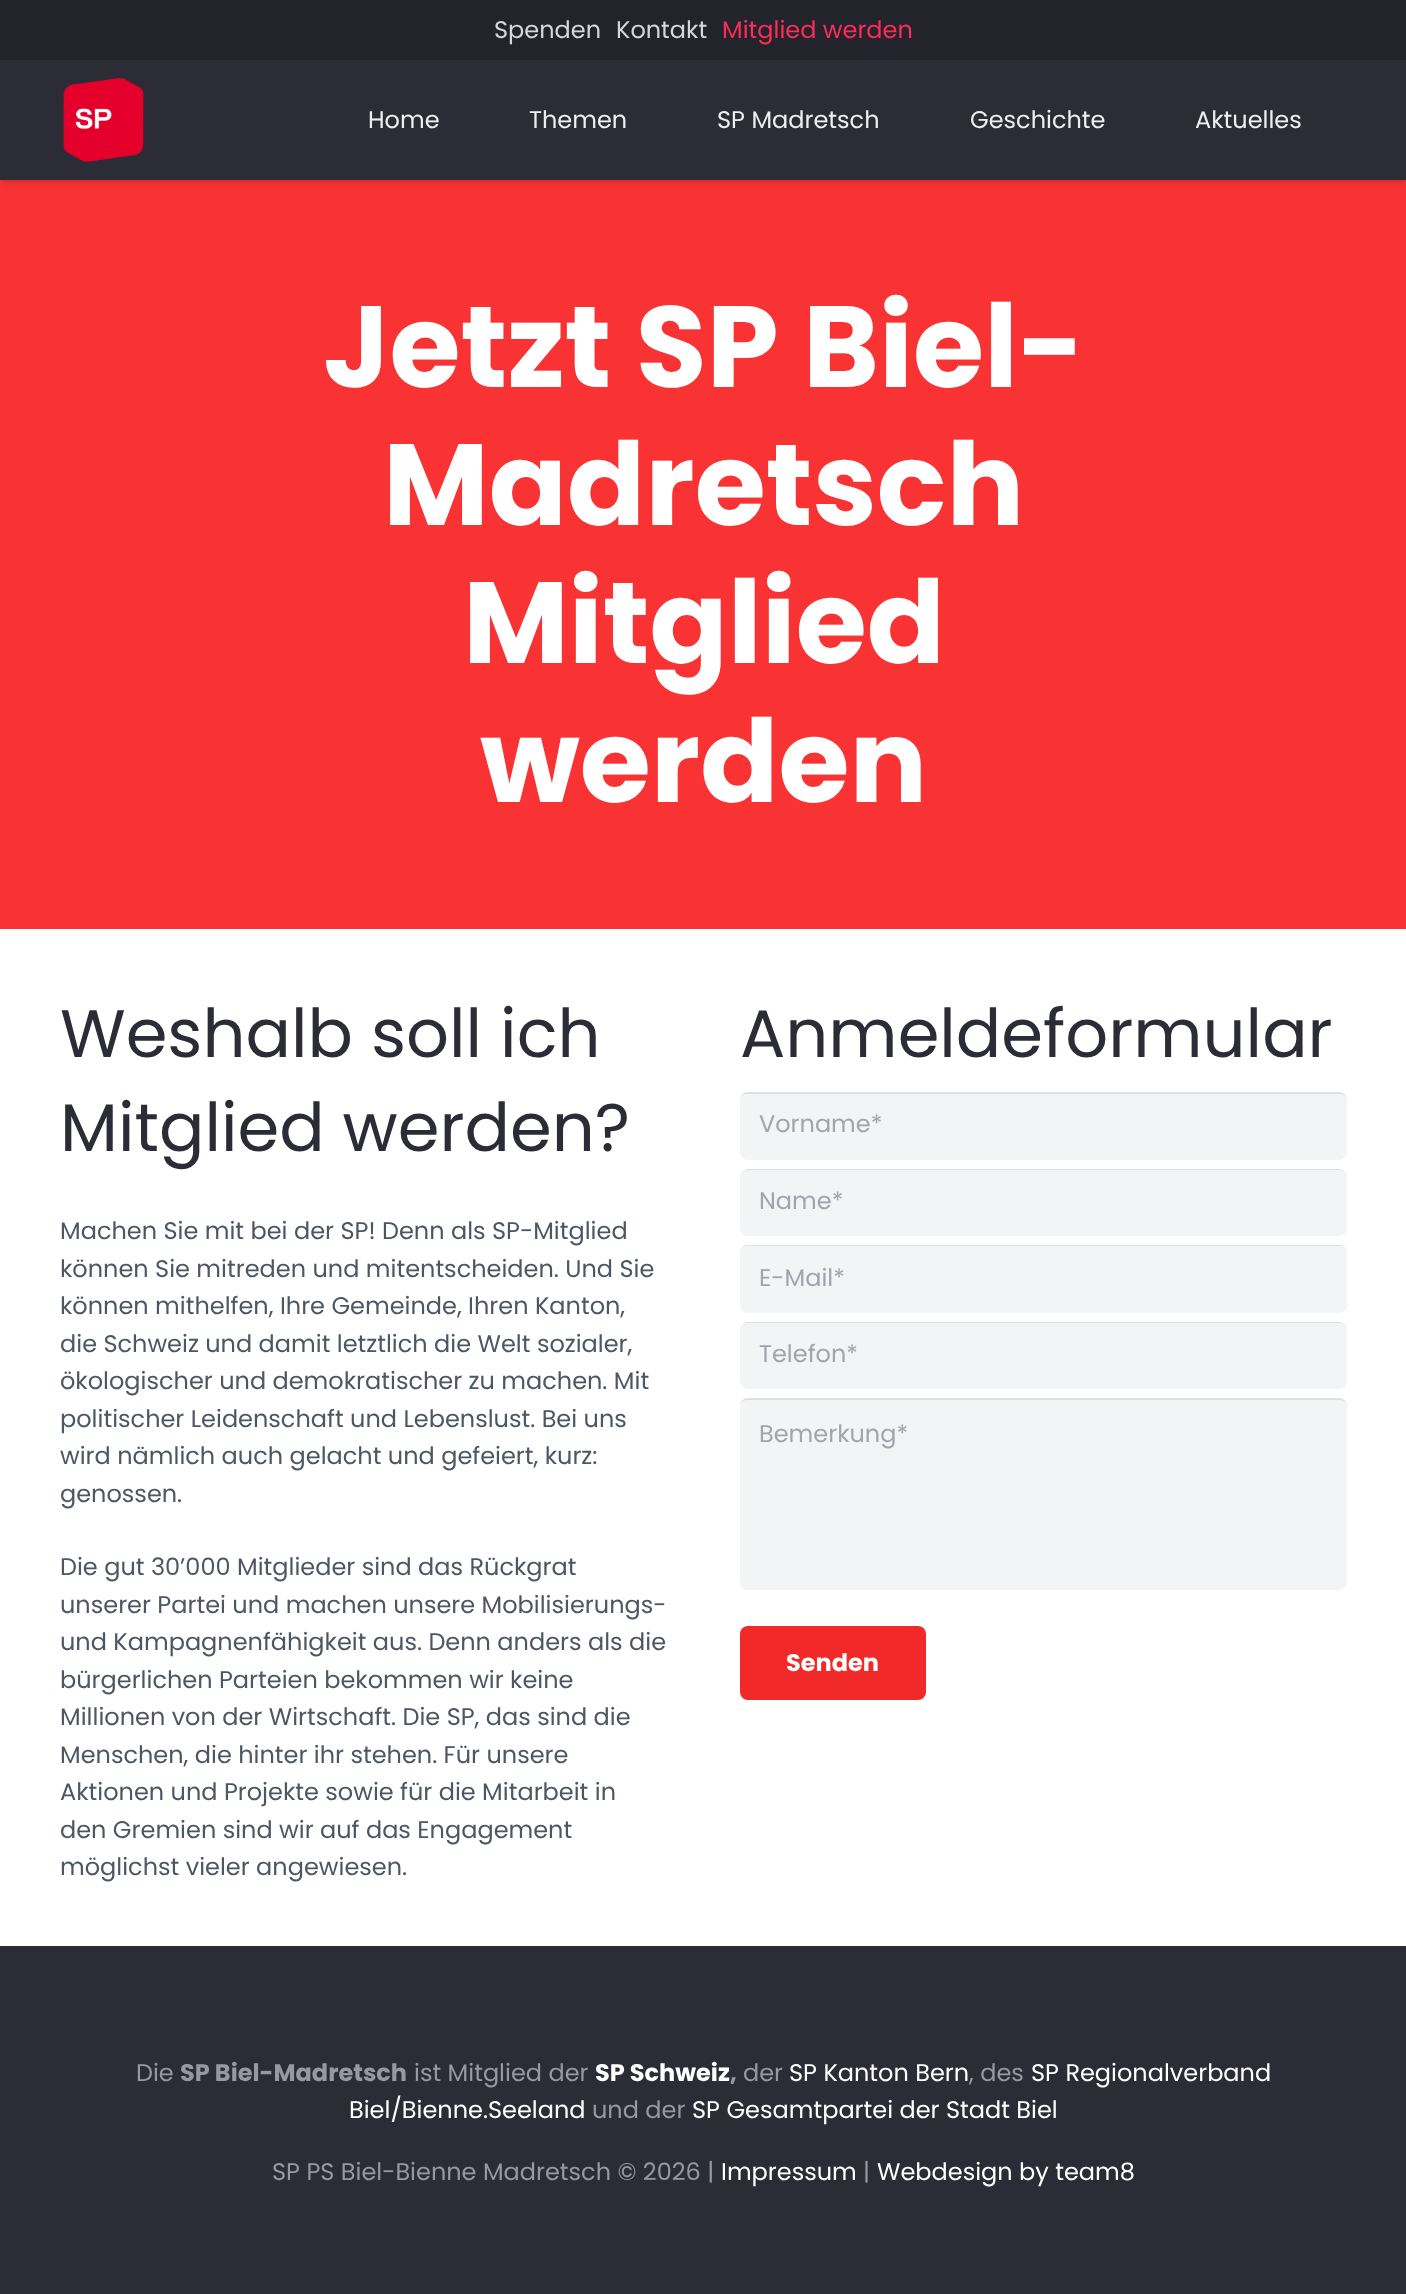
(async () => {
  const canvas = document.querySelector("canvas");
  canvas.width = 1406;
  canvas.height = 2294;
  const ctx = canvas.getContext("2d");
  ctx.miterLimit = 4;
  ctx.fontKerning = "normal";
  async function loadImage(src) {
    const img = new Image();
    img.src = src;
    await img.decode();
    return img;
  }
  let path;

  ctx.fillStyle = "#ffffff";
  ctx.fillRect(0, 0, 1406, 2294);
  ctx.fillStyle = "#23242b";
  ctx.fillRect(0, 0, 1406, 60);
  ctx.fillStyle = "#f93333";
  ctx.fillRect(0, 180, 1406, 749);
  ctx.fillStyle = "rgba(0, 0, 0, 0.05)";
  ctx.filter = "blur(1px)";
  ctx.beginPath();
  ctx.rect(2, 65, 1404, 117);
  ctx.fill();
  ctx.filter = "none";
  ctx.fillStyle = "rgba(0, 0, 0, 0.1)";
  ctx.filter = "blur(4px)";
  ctx.beginPath();
  ctx.rect(2, 66, 1404, 117);
  ctx.fill();
  ctx.filter = "none";
  ctx.fillStyle = "#2b2c36";
  ctx.fillRect(0, 60, 1406, 120);
  ctx.drawImage(await loadImage("img/1.png"), 63, 78, 81, 85);
  ctx.fillStyle = "#f2f4f5";
  ctx.beginPath();
  ctx.roundRect(740, 1092, 607, 68, 8);
  ctx.fill();
  ctx.fillStyle = "rgba(0, 0, 0, 0.08)";
  path = new Path2D("M747 1094H1340C1344 1094 1347 1097 1347 1101C1347 1096 1344 1092 1339 1092H748C743 1092 740 1096 740 1101C740 1097 743 1094 747 1094Z");
  ctx.fill(path);
  ctx.fillStyle = "#f2f4f5";
  ctx.beginPath();
  ctx.roundRect(740, 1169, 607, 67, 8);
  ctx.fill();
  ctx.fillStyle = "#dfe0e1";
  path = new Path2D("M747 1170H1340C1344 1170 1347 1173 1347 1177C1347 1173 1343 1169 1339 1169H748C744 1169 740 1173 740 1177C740 1173 743 1170 747 1170Z");
  ctx.fill(path);
  ctx.fillStyle = "#f2f4f5";
  ctx.beginPath();
  ctx.roundRect(740, 1245, 607, 68, 8);
  ctx.fill();
  ctx.fillStyle = "rgba(0, 0, 0, 0.08)";
  path = new Path2D("M747 1246H1340C1344 1246 1347 1250 1347 1254C1347 1249 1344 1245 1339 1245H748C743 1245 740 1249 740 1254C740 1250 743 1246 747 1246Z");
  ctx.fill(path);
  ctx.fillStyle = "#f2f4f5";
  ctx.beginPath();
  ctx.roundRect(740, 1322, 607, 67, 8);
  ctx.fill();
  ctx.fillStyle = "#dfe0e1";
  path = new Path2D("M747 1323H1340C1344 1323 1347 1326 1347 1330C1347 1326 1343 1322 1339 1322H748C744 1322 740 1326 740 1330C740 1326 743 1323 747 1323Z");
  ctx.fill(path);
  ctx.fillStyle = "#f2f4f5";
  ctx.beginPath();
  ctx.roundRect(740, 1398, 607, 192, 8);
  ctx.fill();
  ctx.fillStyle = "rgba(0, 0, 0, 0.08)";
  path = new Path2D("M747 1400H1340C1344 1400 1347 1403 1347 1407C1347 1402 1344 1398 1339 1398H748C743 1398 740 1402 740 1407C740 1403 743 1400 747 1400Z");
  ctx.fill(path);
  ctx.fillStyle = "#f22929";
  ctx.beginPath();
  ctx.roundRect(740, 1626, 186, 74, 8);
  ctx.fill();
  ctx.fillStyle = "#2b2c36";
  ctx.fillRect(0, 1946, 1406, 348);
  ctx.font = "24px Poppins";
  ctx.fillStyle = "#d3d8db";
  ctx.fillText("Spenden", 494, 38);
  ctx.fillText("Kontakt", 616, 38);
  ctx.fillStyle = "#ff2b58";
  ctx.fillText("Mitglied werden", 722, 38);
  ctx.fillStyle = "#edf0f2";
  for (const [text, x, y] of [
    ["Home", 368, 128],
    ["Themen", 529, 128],
    ["SP Madretsch", 717, 128],
    ["Geschichte", 970, 128],
    ["Aktuelles", 1195, 128],
  ]) {
    ctx.fillText(text, x, y);
  }
  ctx.font = "bold 115.25px Poppins";
  ctx.fillStyle = "#ffffff";
  for (const [text, x, y] of [
    ["Jetzt SP Biel-", 323, 387],
    ["Madretsch", 383, 525],
    ["Mitglied", 463, 663],
    ["werden", 480, 802],
  ]) {
    ctx.fillText(text, x, y);
  }
  ctx.font = "67.25px Poppins";
  ctx.fillStyle = "#2b2c36";
  ctx.fillText("Weshalb soll ich", 60, 1057);
  ctx.fillText("Mitglied werden?", 60, 1151);
  ctx.font = "24px Poppins";
  ctx.fillStyle = "#4e5663";
  for (const [text, x, y] of [
    ["Machen Sie mit bei der SP! Denn als SP-Mitglied", 60, 1239],
    ["können Sie mitreden und mitentscheiden. Und Sie", 60, 1277],
    ["können mithelfen, Ihre Gemeinde, Ihren Kanton,", 60, 1314],
    ["die Schweiz und damit letztlich die Welt sozialer,", 60, 1352],
    ["ökologischer und demokratischer zu machen. Mit", 60, 1389],
    ["politischer Leidenschaft und Lebenslust. Bei uns", 60, 1427],
    ["wird nämlich auch gelacht und gefeiert, kurz:", 60, 1464],
    ["genossen.", 60, 1502],
    ["Die gut 30’000 Mitglieder sind das Rückgrat", 60, 1575],
    ["unserer Partei und machen unsere Mobilisierungs-", 60, 1613],
    ["und Kampagnenfähigkeit aus. Denn anders als die", 60, 1650],
    ["bürgerlichen Parteien bekommen wir keine", 60, 1688],
    ["Millionen von der Wirtschaft. Die SP, das sind die", 60, 1725],
    ["Menschen, die hinter ihr stehen. Für unsere", 60, 1763],
    ["Aktionen und Projekte sowie für die Mitarbeit in", 60, 1800],
    ["den Gremien sind wir auf das Engagement", 60, 1838],
    ["möglichst vieler angewiesen.", 60, 1875],
  ]) {
    ctx.fillText(text, x, y);
  }
  ctx.font = "67.25px Poppins";
  ctx.fillStyle = "#2b2c36";
  ctx.fillText("Anmeldeformular", 740, 1057);
  ctx.font = "24px Poppins";
  ctx.fillStyle = "#a0a5ac";
  for (const [text, x, y] of [
    ["Vorname*", 759, 1132],
    ["Name*", 759, 1209],
    ["E-Mail*", 759, 1286],
    ["Telefon*", 759, 1362],
    ["Bemerkung*", 759, 1442],
  ]) {
    ctx.fillText(text, x, y);
  }
  ctx.font = "bold 24px Poppins";
  ctx.fillStyle = "#ffffff";
  ctx.fillText("Senden", 786, 1671);
  ctx.font = "24px Poppins";
  ctx.fillStyle = "#9698a3";
  ctx.fillText("Die", 136, 2081);
  ctx.font = "bold 24px Poppins";
  ctx.fillText("SP Biel-Madretsch", 180, 2081);
  ctx.font = "24px Poppins";
  ctx.fillText("ist Mitglied der", 414, 2081);
  ctx.font = "bold 24px Poppins";
  ctx.fillStyle = "#ffffff";
  ctx.fillText("SP Schweiz", 595, 2081);
  ctx.fillStyle = "#9698a3";
  ctx.fillText(",", 730, 2081);
  ctx.font = "24px Poppins";
  ctx.fillText("der", 743, 2081);
  ctx.fillStyle = "#ffffff";
  ctx.fillText("SP Kanton Bern", 789, 2081);
  ctx.fillStyle = "#9698a3";
  ctx.fillText(", des", 969, 2081);
  ctx.fillStyle = "#ffffff";
  ctx.fillText("SP Regionalverband", 1031, 2081);
  ctx.fillText("Biel/Bienne.Seeland", 349, 2118);
  ctx.fillStyle = "#9698a3";
  ctx.fillText("und der", 592, 2118);
  ctx.fillStyle = "#ffffff";
  ctx.fillText("SP Gesamtpartei der Stadt Biel", 692, 2118);
  ctx.fillStyle = "#9698a3";
  ctx.fillText("SP PS Biel-Bienne Madretsch © 2026 |", 272, 2180);
  ctx.fillStyle = "#ffffff";
  ctx.fillText("Impressum", 721, 2180);
  ctx.fillStyle = "#9698a3";
  ctx.fillText("|", 863, 2180);
  ctx.fillStyle = "#ffffff";
  ctx.fillText("Webdesign by team8", 877, 2180);
})();
